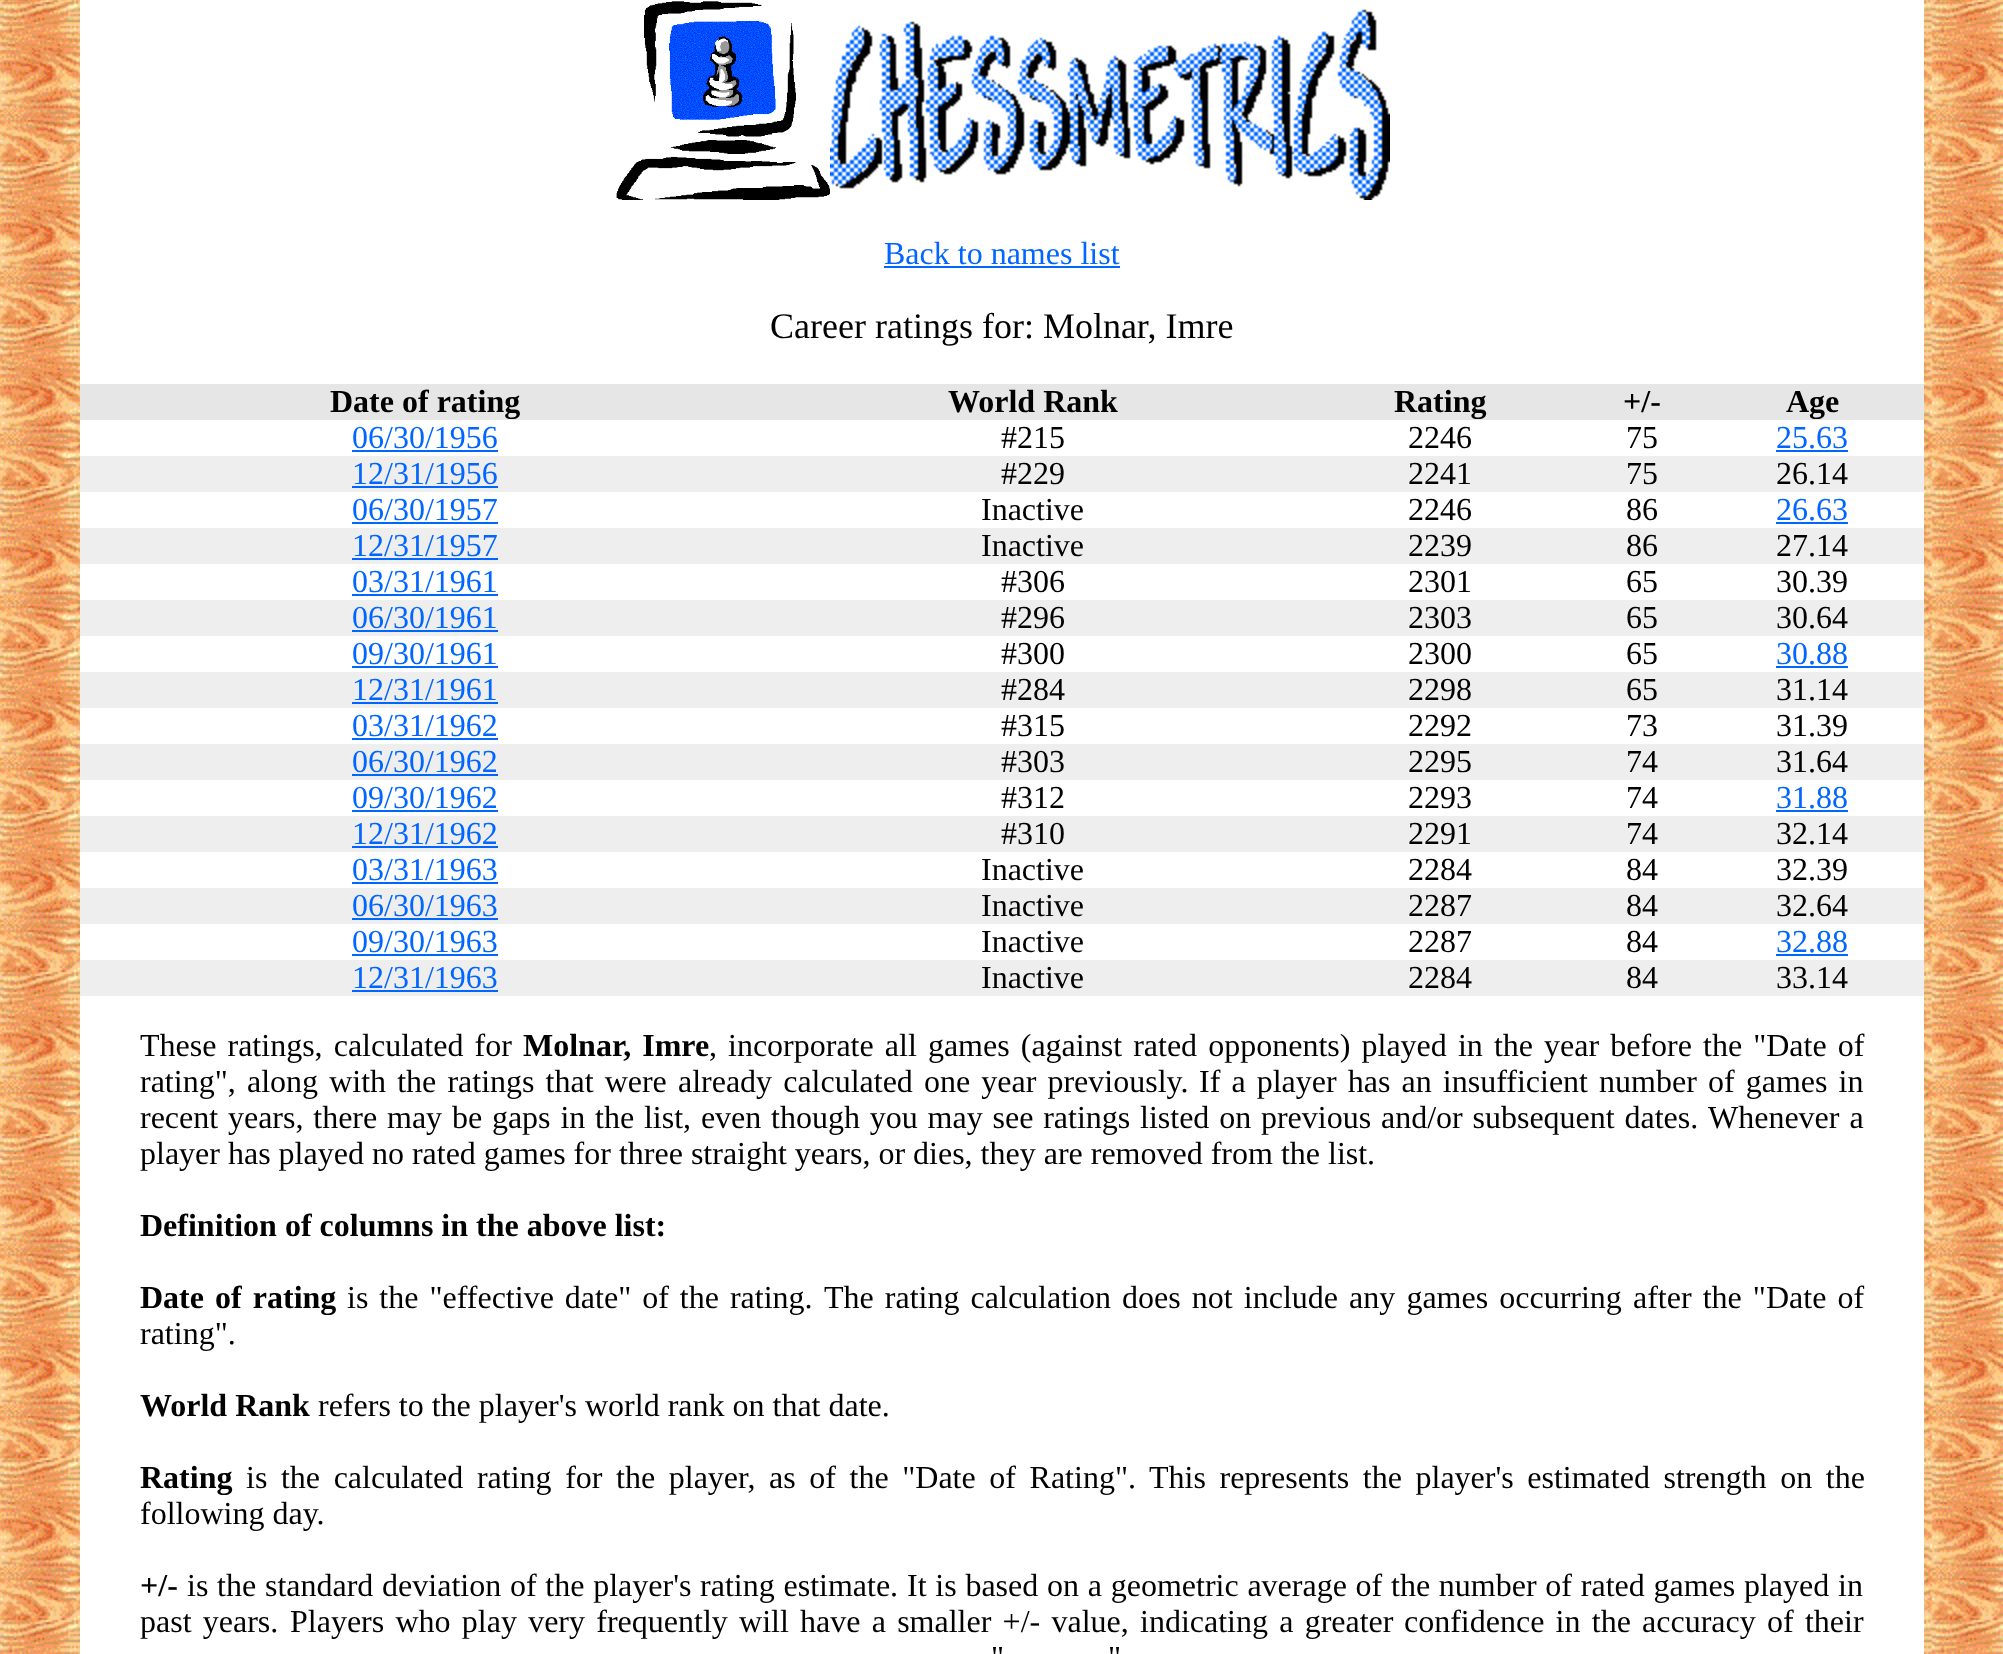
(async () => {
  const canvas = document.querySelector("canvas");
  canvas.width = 2003;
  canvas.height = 1654;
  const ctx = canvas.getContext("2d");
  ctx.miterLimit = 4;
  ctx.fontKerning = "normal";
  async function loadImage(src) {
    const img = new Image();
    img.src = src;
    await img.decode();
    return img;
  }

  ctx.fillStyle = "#ffffff";
  ctx.fillRect(0, 0, 2003, 1654);
  ctx.drawImage(await loadImage("img/1.png"), 0, 0, 2003, 1654);
  ctx.fillRect(80, 0, 1844, 1654);
  ctx.drawImage(await loadImage("img/2.png"), 616, 1, 214, 199);
  ctx.drawImage(await loadImage("img/3.png"), 830, 9, 560, 191);
  for (const [x, y, w, h, color] of [
    [884, 266, 236, 2, "#0066ff"],
    [80, 384, 1844, 36, "#e6e6e6"],
    [352, 450, 146, 2, "#0066ff"],
    [1776, 450, 72, 2, "#0066ff"],
    [80, 456, 1844, 36, "#eeeeee"],
    [352, 486, 146, 2, "#0066ff"],
    [352, 522, 146, 2, "#0066ff"],
    [1776, 522, 72, 2, "#0066ff"],
    [80, 528, 1844, 36, "#eeeeee"],
    [352, 558, 146, 2, "#0066ff"],
    [352, 594, 146, 2, "#0066ff"],
    [80, 600, 1844, 36, "#eeeeee"],
    [352, 630, 146, 2, "#0066ff"],
    [352, 666, 146, 2, "#0066ff"],
    [1776, 666, 72, 2, "#0066ff"],
    [80, 672, 1844, 36, "#eeeeee"],
    [352, 702, 146, 2, "#0066ff"],
    [352, 738, 146, 2, "#0066ff"],
    [80, 744, 1844, 36, "#eeeeee"],
    [352, 774, 146, 2, "#0066ff"],
    [352, 810, 146, 2, "#0066ff"],
    [1776, 810, 72, 2, "#0066ff"],
    [80, 816, 1844, 36, "#eeeeee"],
    [352, 846, 146, 2, "#0066ff"],
    [352, 882, 146, 2, "#0066ff"],
    [80, 888, 1844, 36, "#eeeeee"],
    [352, 918, 146, 2, "#0066ff"],
    [352, 954, 146, 2, "#0066ff"],
    [1776, 954, 72, 2, "#0066ff"],
    [80, 960, 1844, 36, "#eeeeee"],
    [352, 990, 146, 2, "#0066ff"],
  ]) {
    ctx.fillStyle = color;
    ctx.fillRect(x, y, w, h);
  }
  ctx.font = "32px Liberation Serif";
  ctx.fillText("Back to names list", 884, 264);
  ctx.font = "36px Liberation Serif";
  ctx.fillStyle = "#000000";
  ctx.fillText("Career ratings for: Molnar, Imre", 770, 338);
  ctx.font = "bold 32px Liberation Serif";
  for (const [text, x, y] of [
    ["Date of rating", 330, 412],
    ["World Rank", 948, 412],
    ["Rating", 1394, 412],
    ["+/-", 1623, 412],
    ["Age", 1786, 412],
  ]) {
    ctx.fillText(text, x, y);
  }
  ctx.font = "32px Liberation Serif";
  ctx.fillStyle = "#0066ff";
  ctx.fillText("06/30/1956", 352, 448);
  ctx.fillStyle = "#000000";
  for (const [text, x, y] of [
    ["#215", 1001, 448],
    ["2246", 1408, 448],
    ["75", 1626, 448],
  ]) {
    ctx.fillText(text, x, y);
  }
  ctx.fillStyle = "#0066ff";
  ctx.fillText("25.63", 1776, 448);
  ctx.fillText("12/31/1956", 352, 484);
  ctx.fillStyle = "#000000";
  for (const [text, x, y] of [
    ["#229", 1001, 484],
    ["2241", 1408, 484],
    ["75", 1626, 484],
    ["26.14", 1776, 484],
  ]) {
    ctx.fillText(text, x, y);
  }
  ctx.fillStyle = "#0066ff";
  ctx.fillText("06/30/1957", 352, 520);
  ctx.fillStyle = "#000000";
  for (const [text, x, y] of [
    ["Inactive", 981, 520],
    ["2246", 1408, 520],
    ["86", 1626, 520],
  ]) {
    ctx.fillText(text, x, y);
  }
  ctx.fillStyle = "#0066ff";
  ctx.fillText("26.63", 1776, 520);
  ctx.fillText("12/31/1957", 352, 556);
  ctx.fillStyle = "#000000";
  for (const [text, x, y] of [
    ["Inactive", 981, 556],
    ["2239", 1408, 556],
    ["86", 1626, 556],
    ["27.14", 1776, 556],
  ]) {
    ctx.fillText(text, x, y);
  }
  ctx.fillStyle = "#0066ff";
  ctx.fillText("03/31/1961", 352, 592);
  ctx.fillStyle = "#000000";
  for (const [text, x, y] of [
    ["#306", 1001, 592],
    ["2301", 1408, 592],
    ["65", 1626, 592],
    ["30.39", 1776, 592],
  ]) {
    ctx.fillText(text, x, y);
  }
  ctx.fillStyle = "#0066ff";
  ctx.fillText("06/30/1961", 352, 628);
  ctx.fillStyle = "#000000";
  for (const [text, x, y] of [
    ["#296", 1001, 628],
    ["2303", 1408, 628],
    ["65", 1626, 628],
    ["30.64", 1776, 628],
  ]) {
    ctx.fillText(text, x, y);
  }
  ctx.fillStyle = "#0066ff";
  ctx.fillText("09/30/1961", 352, 664);
  ctx.fillStyle = "#000000";
  for (const [text, x, y] of [
    ["#300", 1001, 664],
    ["2300", 1408, 664],
    ["65", 1626, 664],
  ]) {
    ctx.fillText(text, x, y);
  }
  ctx.fillStyle = "#0066ff";
  ctx.fillText("30.88", 1776, 664);
  ctx.fillText("12/31/1961", 352, 700);
  ctx.fillStyle = "#000000";
  for (const [text, x, y] of [
    ["#284", 1001, 700],
    ["2298", 1408, 700],
    ["65", 1626, 700],
    ["31.14", 1776, 700],
  ]) {
    ctx.fillText(text, x, y);
  }
  ctx.fillStyle = "#0066ff";
  ctx.fillText("03/31/1962", 352, 736);
  ctx.fillStyle = "#000000";
  for (const [text, x, y] of [
    ["#315", 1001, 736],
    ["2292", 1408, 736],
    ["73", 1626, 736],
    ["31.39", 1776, 736],
  ]) {
    ctx.fillText(text, x, y);
  }
  ctx.fillStyle = "#0066ff";
  ctx.fillText("06/30/1962", 352, 772);
  ctx.fillStyle = "#000000";
  for (const [text, x, y] of [
    ["#303", 1001, 772],
    ["2295", 1408, 772],
    ["74", 1626, 772],
    ["31.64", 1776, 772],
  ]) {
    ctx.fillText(text, x, y);
  }
  ctx.fillStyle = "#0066ff";
  ctx.fillText("09/30/1962", 352, 808);
  ctx.fillStyle = "#000000";
  for (const [text, x, y] of [
    ["#312", 1001, 808],
    ["2293", 1408, 808],
    ["74", 1626, 808],
  ]) {
    ctx.fillText(text, x, y);
  }
  ctx.fillStyle = "#0066ff";
  ctx.fillText("31.88", 1776, 808);
  ctx.fillText("12/31/1962", 352, 844);
  ctx.fillStyle = "#000000";
  for (const [text, x, y] of [
    ["#310", 1001, 844],
    ["2291", 1408, 844],
    ["74", 1626, 844],
    ["32.14", 1776, 844],
  ]) {
    ctx.fillText(text, x, y);
  }
  ctx.fillStyle = "#0066ff";
  ctx.fillText("03/31/1963", 352, 880);
  ctx.fillStyle = "#000000";
  for (const [text, x, y] of [
    ["Inactive", 981, 880],
    ["2284", 1408, 880],
    ["84", 1626, 880],
    ["32.39", 1776, 880],
  ]) {
    ctx.fillText(text, x, y);
  }
  ctx.fillStyle = "#0066ff";
  ctx.fillText("06/30/1963", 352, 916);
  ctx.fillStyle = "#000000";
  for (const [text, x, y] of [
    ["Inactive", 981, 916],
    ["2287", 1408, 916],
    ["84", 1626, 916],
    ["32.64", 1776, 916],
  ]) {
    ctx.fillText(text, x, y);
  }
  ctx.fillStyle = "#0066ff";
  ctx.fillText("09/30/1963", 352, 952);
  ctx.fillStyle = "#000000";
  for (const [text, x, y] of [
    ["Inactive", 981, 952],
    ["2287", 1408, 952],
    ["84", 1626, 952],
  ]) {
    ctx.fillText(text, x, y);
  }
  ctx.fillStyle = "#0066ff";
  ctx.fillText("32.88", 1776, 952);
  ctx.fillText("12/31/1963", 352, 988);
  ctx.fillStyle = "#000000";
  for (const [text, x, y] of [
    ["Inactive", 981, 988],
    ["2284", 1408, 988],
    ["84", 1626, 988],
    ["33.14", 1776, 988],
  ]) {
    ctx.fillText(text, x, y);
  }
  ctx.wordSpacing = "3.1px";
  ctx.fillText("These ratings, calculated for", 140, 1056);
  ctx.font = "bold 32px Liberation Serif";
  ctx.fillText("Molnar, Imre", 523, 1056);
  ctx.wordSpacing = "0px";
  ctx.font = "32px Liberation Serif";
  ctx.fillText(",", 709, 1056);
  ctx.wordSpacing = "3.1px";
  ctx.fillText("incorporate all games (against rated opponents) played in the year before", 728, 1056);
  ctx.fillText("the \"Date of", 1703, 1056);
  ctx.wordSpacing = "0px";
  ctx.fillText("rating\",", 140, 1092);
  ctx.wordSpacing = "3.1px";
  ctx.fillText("along with the ratings that were already calculated one year previously.", 247, 1092);
  ctx.fillText("If a player has an insufficient number of games in", 1199, 1092);
  ctx.wordSpacing = "1.8px";
  ctx.fillText("recent years, there may be gaps in the list, even though you may see ratings listed on previous and/or subsequent dates.", 140, 1128);
  ctx.wordSpacing = "2px";
  ctx.fillText("Whenever a", 1708, 1128);
  ctx.wordSpacing = "0px";
  ctx.fillText("player has played no rated games for three straight years, or dies, they are removed from the list.", 140, 1164);
  ctx.font = "bold 32px Liberation Serif";
  ctx.fillText("Definition of columns in the above list:", 140, 1236);
  ctx.wordSpacing = "3.1px";
  ctx.fillText("Date of rating", 140, 1308);
  ctx.wordSpacing = "3px";
  ctx.font = "32px Liberation Serif";
  ctx.fillText("is the \"effective date\" of the rating.", 347, 1308);
  ctx.wordSpacing = "3.1px";
  ctx.fillText("The rating calculation does not include any games occurring after the \"Date of", 824, 1308);
  ctx.wordSpacing = "0px";
  ctx.fillText("rating\".", 140, 1344);
  ctx.font = "bold 32px Liberation Serif";
  ctx.fillText("World Rank", 140, 1416);
  ctx.font = "32px Liberation Serif";
  ctx.fillText("refers to the player's world rank on that date.", 318, 1416);
  ctx.font = "bold 32px Liberation Serif";
  ctx.fillText("Rating", 140, 1488);
  ctx.wordSpacing = "5.6px";
  ctx.font = "32px Liberation Serif";
  ctx.fillText("is the calculated rating for the player, as of the \"Date of Rating\". This represents the player's estimated strength on the", 246, 1488);
  ctx.wordSpacing = "0px";
  ctx.fillText("following day.", 140, 1524);
  ctx.font = "bold 32px Liberation Serif";
  ctx.fillText("+/-", 140, 1596);
  ctx.wordSpacing = "0.75px";
  ctx.font = "32px Liberation Serif";
  ctx.fillText("is the standard deviation of the player's rating estimate.", 187, 1596);
  ctx.fillText("It is based on a geometric average of the number of rated games played in", 907, 1596);
  ctx.wordSpacing = "3.25px";
  for (const [text, x, y] of [
    ["past years.", 140, 1632],
    ["Players who play very frequently will have a smaller +/- value, indicating a greater", 290, 1632],
    ["confidence in the accuracy of their", 1404, 1632],
  ]) {
    ctx.fillText(text, x, y);
  }
  ctx.wordSpacing = "9px";
  ctx.fillText("\"", 991, 1668);
  ctx.fillText("\"", 1108, 1668);
})();
